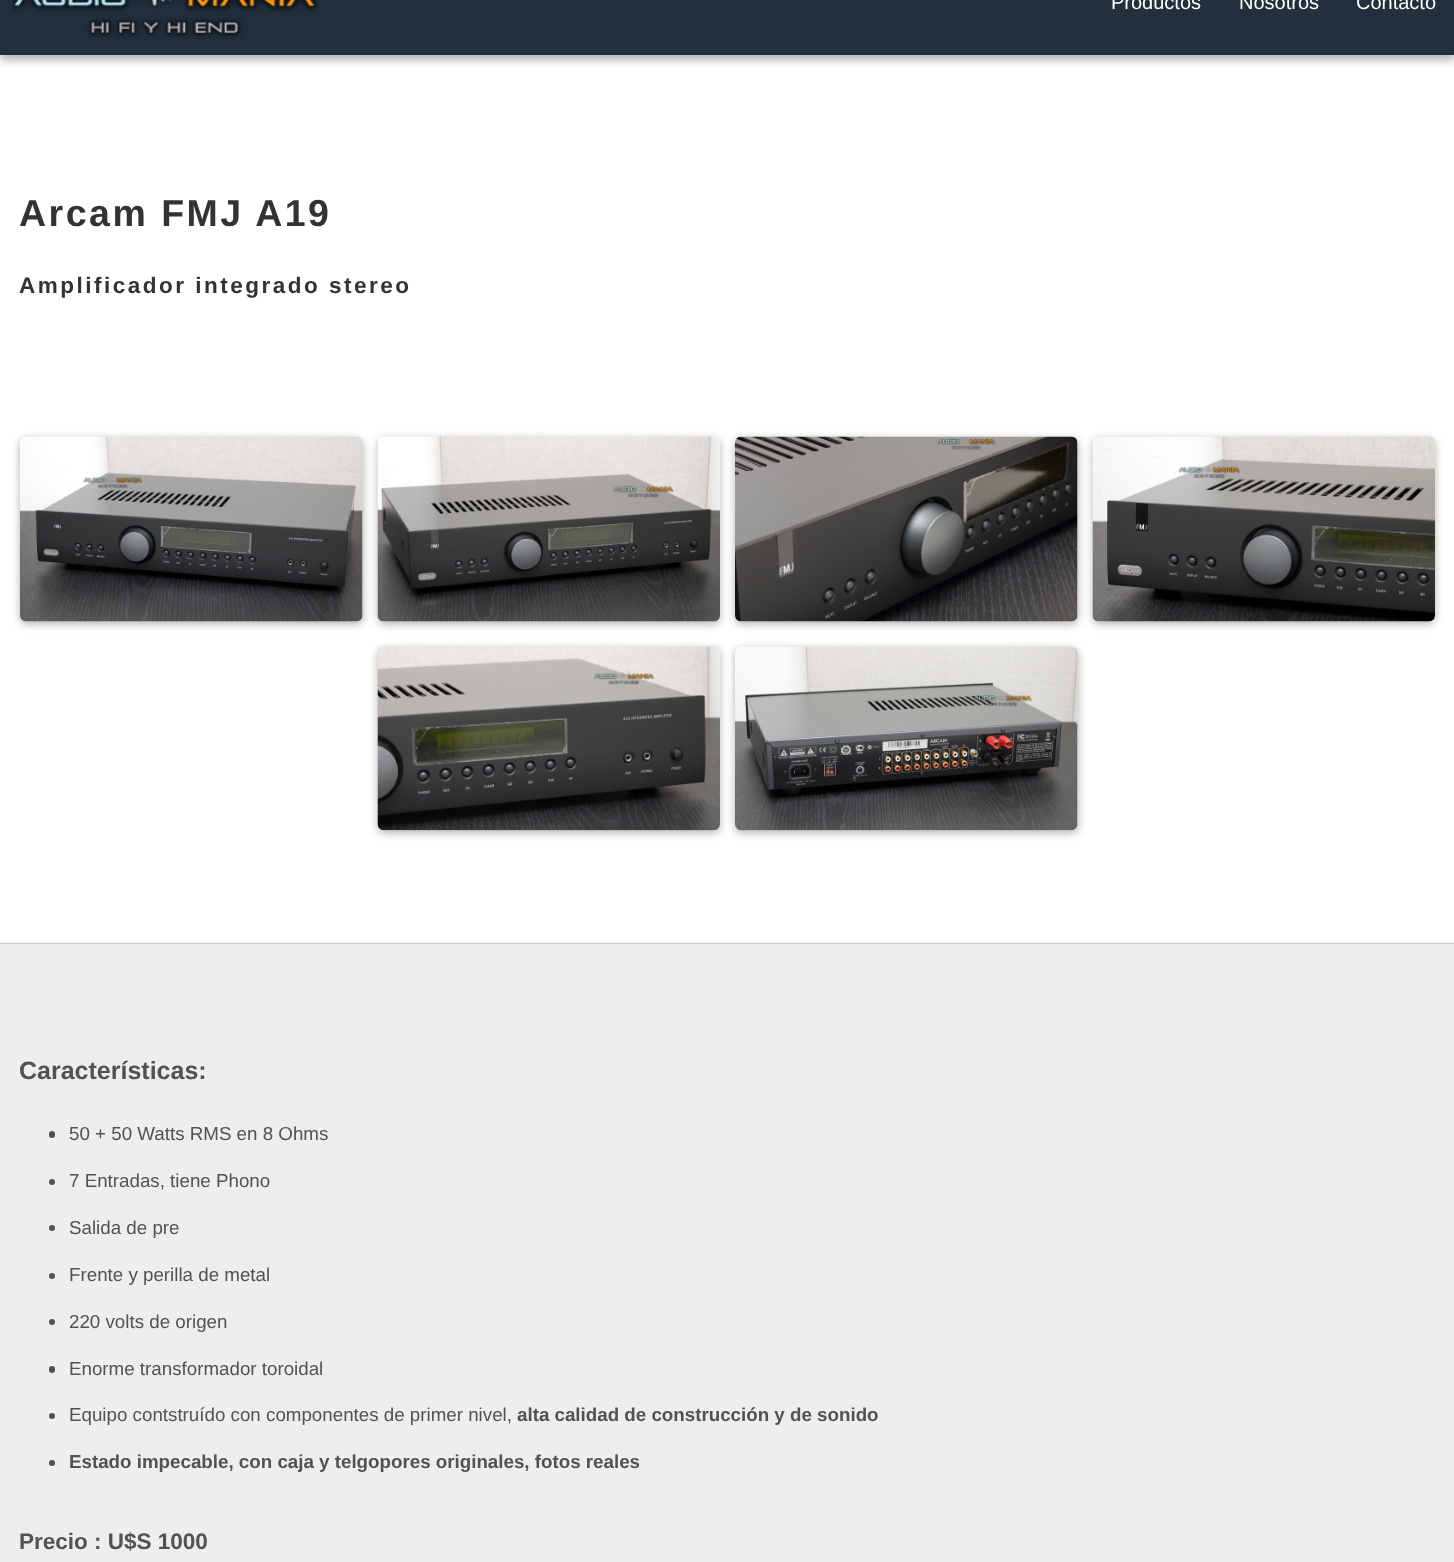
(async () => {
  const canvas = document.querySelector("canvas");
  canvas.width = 1454;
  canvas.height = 1562;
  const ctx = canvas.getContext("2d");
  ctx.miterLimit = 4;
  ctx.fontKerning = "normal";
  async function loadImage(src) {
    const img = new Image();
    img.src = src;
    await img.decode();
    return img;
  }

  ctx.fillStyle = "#ffffff";
  ctx.fillRect(0, 0, 1454, 1562);
  ctx.fillStyle = "rgba(0, 0, 0, 0.3)";
  ctx.filter = "blur(4.5px)";
  ctx.beginPath();
  ctx.rect(0, -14, 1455, 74);
  ctx.fill();
  ctx.filter = "none";
  ctx.fillStyle = "#222f3d";
  ctx.fillRect(0, 0, 1454, 55);
  ctx.drawImage(await loadImage("img/1.png"), 12, 0, 307, 39);
  ctx.fillStyle = "rgba(0, 0, 0, 0.3)";
  ctx.filter = "blur(4.5px)";
  ctx.beginPath();
  ctx.roundRect(20, 439, 343, 185, 6);
  ctx.fill();
  ctx.filter = "none";
  ctx.drawImage(await loadImage("img/2.png"), 20, 436, 343, 186);
  ctx.filter = "blur(4.5px)";
  ctx.beginPath();
  ctx.roundRect(378, 439, 342, 185, 6);
  ctx.fill();
  ctx.filter = "none";
  ctx.drawImage(await loadImage("img/3.png"), 377, 436, 343, 186);
  ctx.filter = "blur(4.5px)";
  ctx.beginPath();
  ctx.roundRect(735, 439, 343, 185, 6);
  ctx.fill();
  ctx.filter = "none";
  ctx.drawImage(await loadImage("img/4.png"), 735, 436, 343, 186);
  ctx.filter = "blur(4.5px)";
  ctx.beginPath();
  ctx.roundRect(1093, 439, 342, 185, 6);
  ctx.fill();
  ctx.filter = "none";
  ctx.drawImage(await loadImage("img/5.png"), 1092, 436, 343, 186);
  ctx.filter = "blur(4.5px)";
  ctx.beginPath();
  ctx.roundRect(378, 649, 342, 184, 6);
  ctx.fill();
  ctx.filter = "none";
  ctx.drawImage(await loadImage("img/6.png"), 377, 646, 343, 185);
  ctx.filter = "blur(4.5px)";
  ctx.beginPath();
  ctx.roundRect(735, 649, 343, 184, 6);
  ctx.fill();
  ctx.filter = "none";
  ctx.drawImage(await loadImage("img/7.png"), 735, 646, 343, 185);
  ctx.filter = "blur(4.5px)";
  ctx.beginPath();
  ctx.rect(0, 948, 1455, 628);
  ctx.fill();
  ctx.filter = "none";
  ctx.fillStyle = "#eeeeee";
  ctx.fillRect(0, 944, 1454, 618);
  ctx.fillStyle = "#cccccc";
  ctx.fillRect(0, 943, 1454, 1);
  ctx.fillStyle = "#525252";
  ctx.beginPath();
  ctx.roundRect(49, 1131, 6, 7, 3);
  ctx.fill();
  ctx.beginPath();
  ctx.arc(52, 1182, 3, 0, Math.PI * 2);
  ctx.fill();
  ctx.beginPath();
  ctx.arc(52, 1228, 3, 0, Math.PI * 2);
  ctx.fill();
  ctx.beginPath();
  ctx.arc(52, 1276, 3, 0, Math.PI * 2);
  ctx.fill();
  ctx.beginPath();
  ctx.arc(52, 1322, 3, 0, Math.PI * 2);
  ctx.fill();
  ctx.beginPath();
  ctx.roundRect(49, 1366, 6, 7, 3);
  ctx.fill();
  ctx.beginPath();
  ctx.arc(52, 1416, 3, 0, Math.PI * 2);
  ctx.fill();
  ctx.beginPath();
  ctx.arc(52, 1463, 3, 0, Math.PI * 2);
  ctx.fill();
  ctx.font = "20px Liberation Sans";
  ctx.fillStyle = "#ffffff";
  for (const [text, x, y] of [
    ["Productos", 1111, 9],
    ["Nosotros", 1239, 9],
    ["Contacto", 1356, 9],
  ]) {
    ctx.fillText(text, x, y);
  }
  ctx.letterSpacing = "2.5px";
  ctx.font = "bold 37.5px Liberation Sans";
  ctx.fillStyle = "#333333";
  ctx.fillText("Arcam FMJ A19", 19, 226);
  ctx.font = "bold 22.5px Liberation Sans";
  ctx.fillText("Amplificador integrado stereo", 19, 293);
  ctx.letterSpacing = "0px";
  ctx.font = "bold 25px Liberation Sans";
  ctx.fillStyle = "#525252";
  ctx.fillText("Características:", 19, 1079);
  ctx.font = "18.75px Liberation Sans";
  for (const [text, x, y] of [
    ["50 + 50 Watts RMS en 8 Ohms", 69, 1140],
    ["7 Entradas, tiene Phono", 69, 1187],
    ["Salida de pre", 69, 1234],
    ["Frente y perilla de metal", 69, 1281],
    ["220 volts de origen", 69, 1328],
    ["Enorme transformador toroidal", 69, 1375],
    ["Equipo contstruído con componentes de primer nivel,", 69, 1421],
  ]) {
    ctx.fillText(text, x, y);
  }
  ctx.font = "bold 18.75px Liberation Sans";
  ctx.fillText("alta calidad de construcción y de sonido", 517, 1421);
  ctx.fillText("Estado impecable, con caja y telgopores originales, fotos reales", 69, 1468);
  ctx.font = "bold 22.5px Liberation Sans";
  ctx.fillText("Precio : U$S 1000", 19, 1549);
})();
